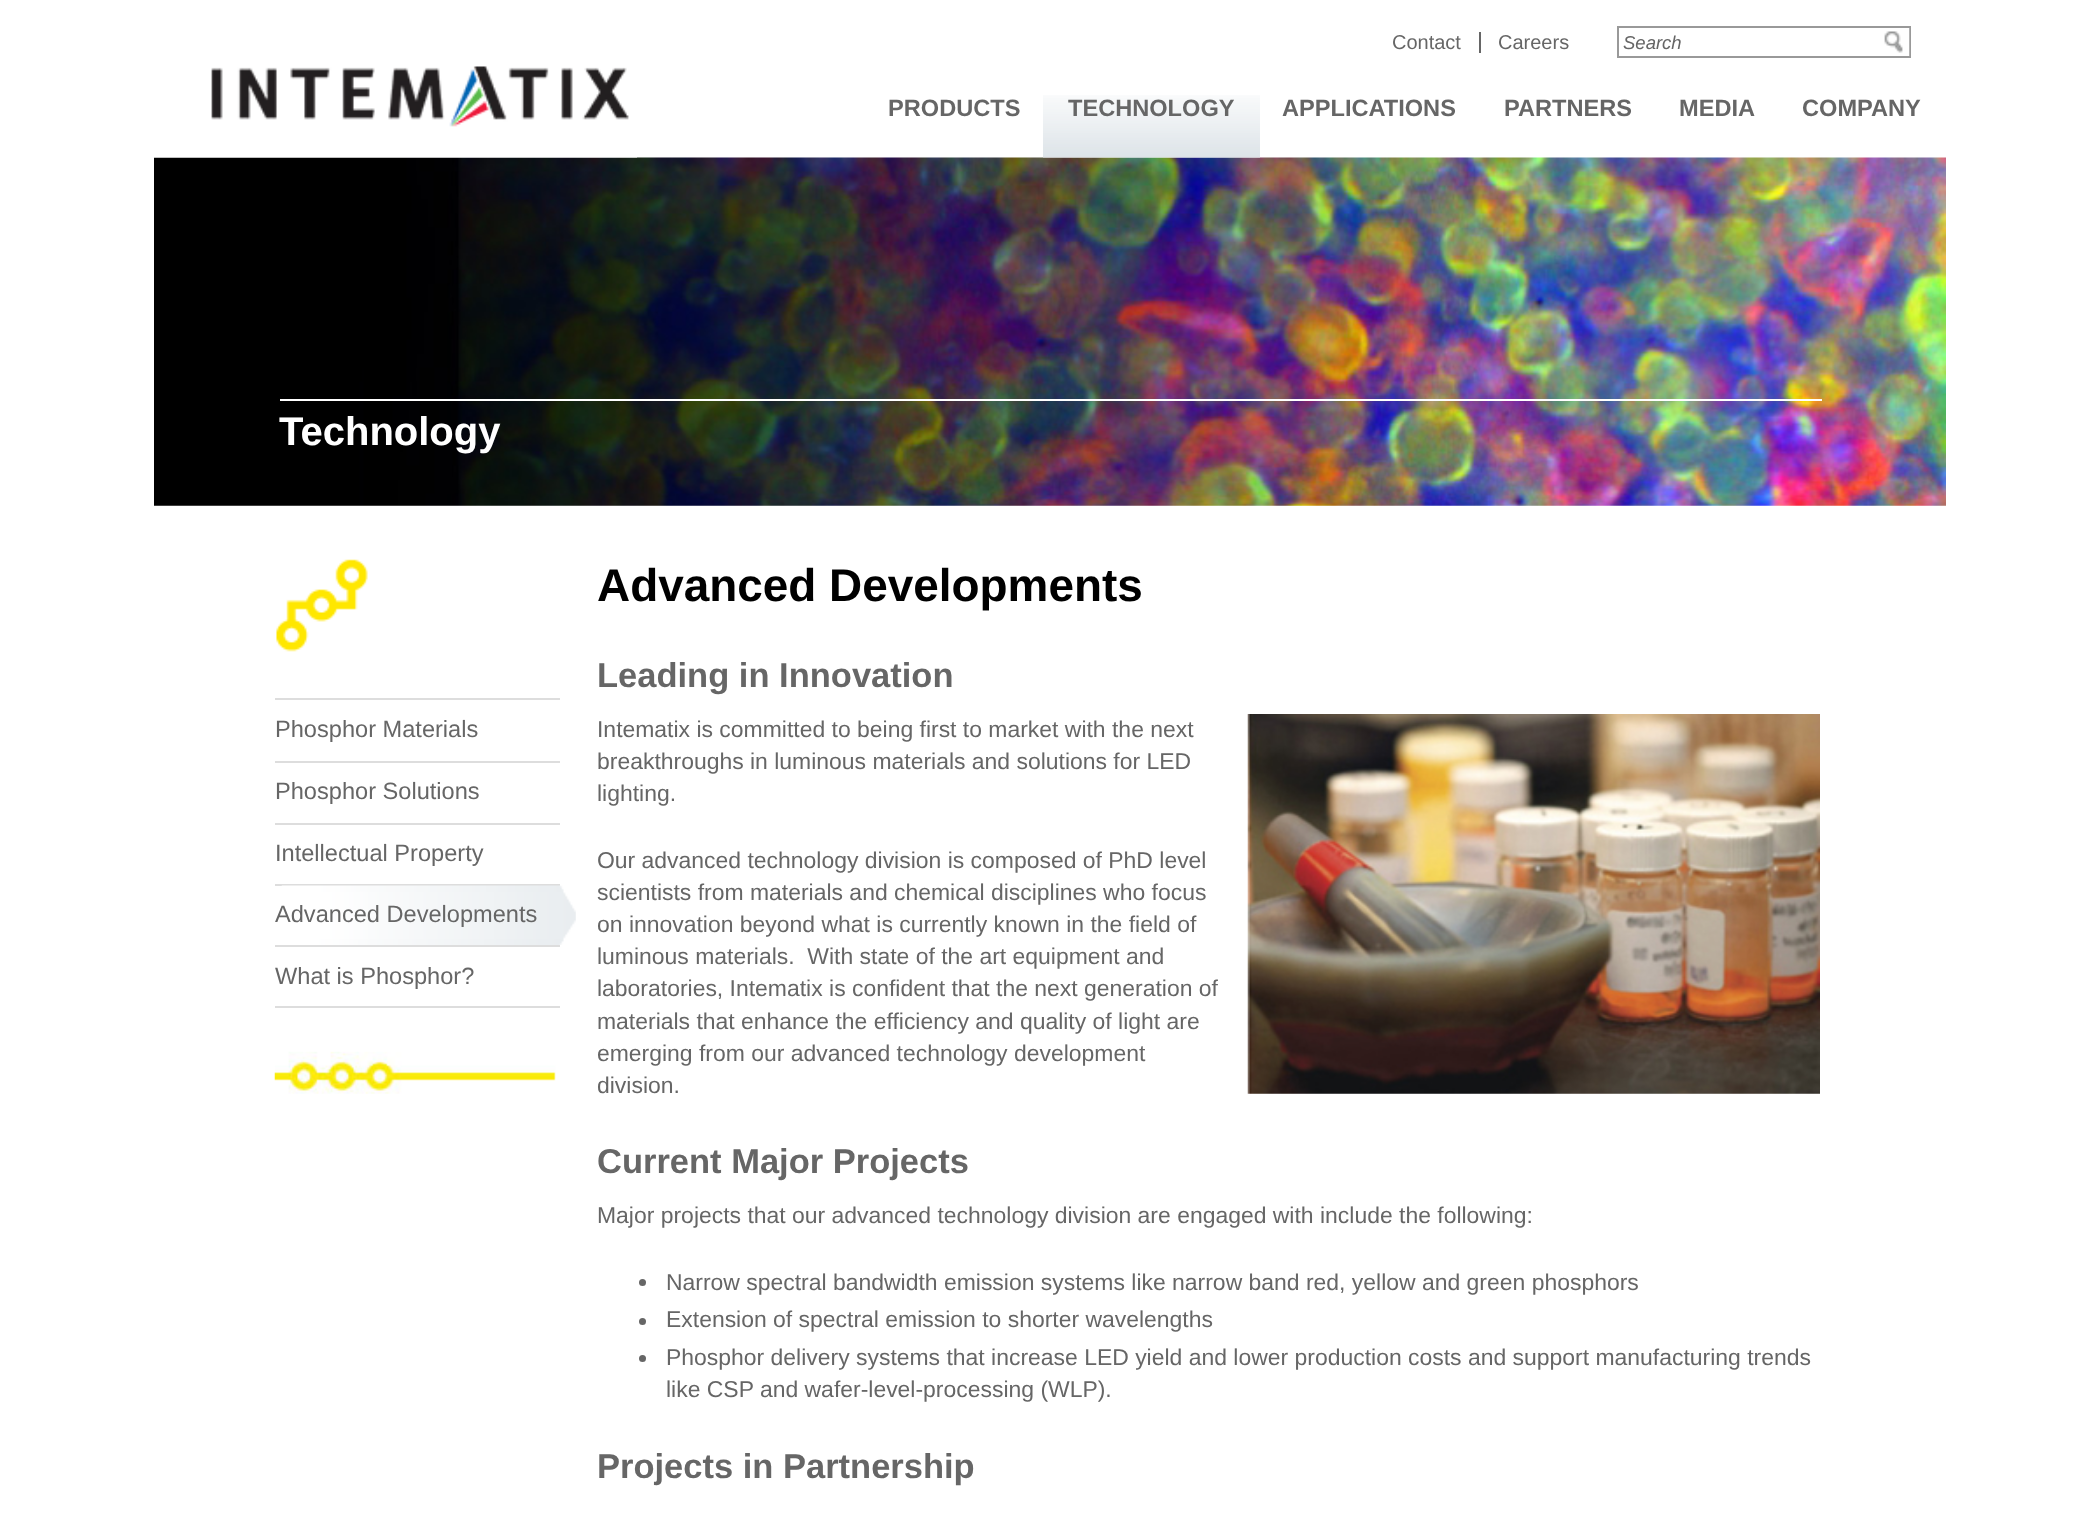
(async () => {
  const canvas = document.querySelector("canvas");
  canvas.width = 2099;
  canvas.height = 1513;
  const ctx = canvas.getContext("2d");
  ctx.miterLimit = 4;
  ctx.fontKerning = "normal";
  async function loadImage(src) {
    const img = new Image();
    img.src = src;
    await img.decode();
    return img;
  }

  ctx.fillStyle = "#ffffff";
  ctx.fillRect(0, 0, 2099, 1513);
  ctx.fillStyle = "#666666";
  ctx.fillRect(1479, 32, 2, 21);
  ctx.strokeStyle = "#999999";
  ctx.lineWidth = 2;
  ctx.strokeRect(1618, 27, 292, 30);
  ctx.drawImage(await loadImage("img/1.png"), 1884, 28, 26, 28);
  ctx.drawImage(await loadImage("img/4.png"), 154, 157, 1792, 349);
  ctx.drawImage(await loadImage("img/2.png"), 154, 66, 483, 92);
  ctx.drawImage(await loadImage("img/3.png"), 1043, 95, 217, 63);
  ctx.fillStyle = "#ffffff";
  ctx.fillRect(280, 399, 1542, 2);
  ctx.drawImage(await loadImage("img/5.png"), 276, 559, 92, 93);
  for (const [x, y, w, h, color] of [
    [275, 698, 285, 2, "#dddddd"],
    [275, 761, 285, 2, "#dddddd"],
    [275, 823, 285, 2, "#dddddd"],
    [275, 884, 285, 2, "#dddddd"],
    [275, 945, 285, 2, "#dddddd"],
  ]) {
    ctx.fillStyle = color;
    ctx.fillRect(x, y, w, h);
  }
  ctx.drawImage(await loadImage("img/6.png"), 281, 885, 295, 60);
  ctx.fillRect(275, 1006, 285, 2);
  ctx.drawImage(await loadImage("img/7.png"), 274, 1051, 282, 43);
  ctx.drawImage(await loadImage("img/8.png"), 1247, 714, 573, 380);
  ctx.fillStyle = "#666666";
  ctx.beginPath();
  ctx.arc(642.5, 1282.5, 3.5, 0, Math.PI * 2);
  ctx.fill();
  ctx.beginPath();
  ctx.arc(642.5, 1321.5, 3.5, 0, Math.PI * 2);
  ctx.fill();
  ctx.beginPath();
  ctx.arc(642.5, 1358.5, 3.5, 0, Math.PI * 2);
  ctx.fill();
  ctx.font = "20px Liberation Sans";
  ctx.fillText("Contact", 1392, 49);
  ctx.fillText("Careers", 1498, 49);
  ctx.font = "italic 18.5px Liberation Sans";
  ctx.fillText("Search", 1623, 49);
  ctx.font = "bold 23.6px Liberation Sans";
  for (const [text, x, y] of [
    ["PRODUCTS", 888, 116],
    ["TECHNOLOGY", 1068, 116],
    ["APPLICATIONS", 1282, 116],
    ["PARTNERS", 1504, 116],
    ["MEDIA", 1679, 116],
    ["COMPANY", 1802, 116],
  ]) {
    ctx.fillText(text, x, y);
  }
  ctx.font = "bold 40px Liberation Sans";
  ctx.fillStyle = "#ffffff";
  ctx.fillText("Technology", 279, 445);
  ctx.font = "23.6px Liberation Sans";
  ctx.fillStyle = "#666666";
  for (const [text, x, y] of [
    ["Phosphor Materials", 275, 737],
    ["Phosphor Solutions", 275, 799],
    ["Intellectual Property", 275, 861],
    ["Advanced Developments", 275, 922],
    ["What is Phosphor?", 275, 984],
  ]) {
    ctx.fillText(text, x, y);
  }
  ctx.font = "bold 45.9px Liberation Sans";
  ctx.fillStyle = "#000000";
  ctx.fillText("Advanced Developments", 597, 601);
  ctx.font = "bold 34.5px Liberation Sans";
  ctx.fillStyle = "#666666";
  ctx.fillText("Leading in Innovation", 597, 687);
  ctx.font = "22.95px Liberation Sans";
  for (const [text, x, y] of [
    ["Intematix is committed to being first to market with the next", 597, 737],
    ["breakthroughs in luminous materials and solutions for LED", 597, 769],
    ["lighting.", 597, 801],
    ["Our advanced technology division is composed of PhD level", 597, 868],
    ["scientists from materials and chemical disciplines who focus", 597, 900],
    ["on innovation beyond what is currently known in the field of", 597, 932],
    ["luminous materials.  With state of the art equipment and", 597, 964],
    ["laboratories, Intematix is confident that the next generation of", 597, 996],
    ["materials that enhance the efficiency and quality of light are", 597, 1029],
    ["emerging from our advanced technology development", 597, 1061],
    ["division.", 597, 1093],
  ]) {
    ctx.fillText(text, x, y);
  }
  ctx.font = "bold 34.5px Liberation Sans";
  ctx.fillText("Current Major Projects", 597, 1173);
  ctx.font = "22.95px Liberation Sans";
  for (const [text, x, y] of [
    ["Major projects that our advanced technology division are engaged with include the following:", 597, 1223],
    ["Narrow spectral bandwidth emission systems like narrow band red, yellow and green phosphors", 666, 1290],
    ["Extension of spectral emission to shorter wavelengths", 666, 1327],
    ["Phosphor delivery systems that increase LED yield and lower production costs and support manufacturing trends", 666, 1365],
    ["like CSP and wafer-level-processing (WLP).", 666, 1397],
  ]) {
    ctx.fillText(text, x, y);
  }
  ctx.font = "bold 34.5px Liberation Sans";
  ctx.fillText("Projects in Partnership", 597, 1478);
})();
